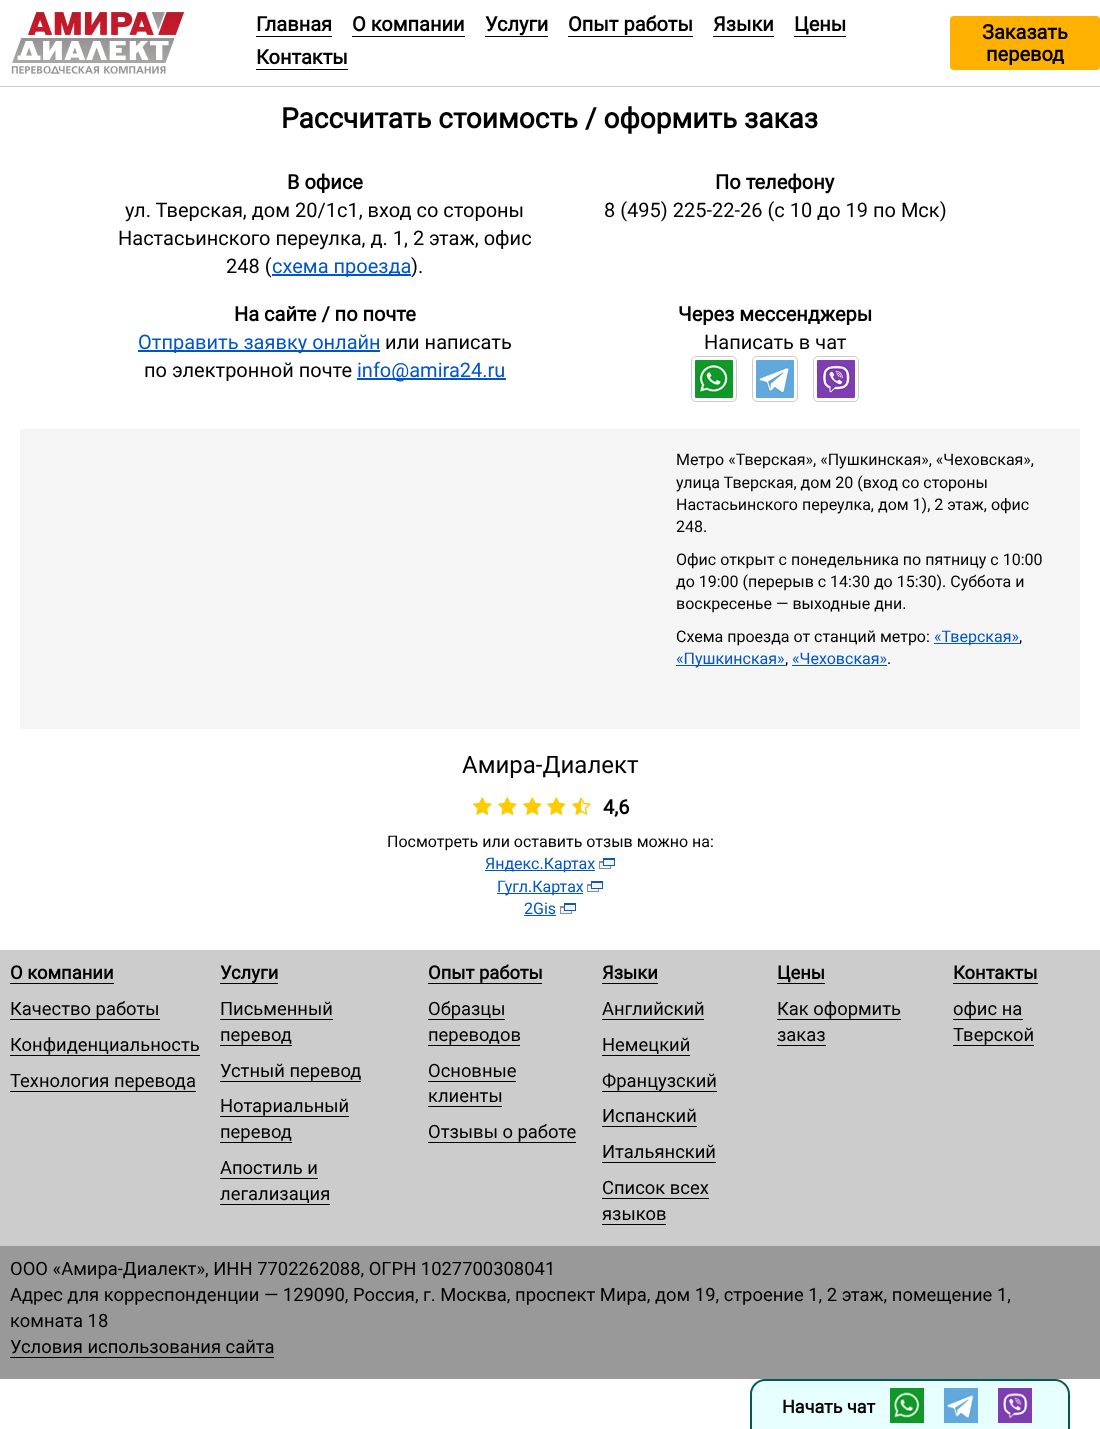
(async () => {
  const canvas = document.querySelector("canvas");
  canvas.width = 1100;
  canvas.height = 1429;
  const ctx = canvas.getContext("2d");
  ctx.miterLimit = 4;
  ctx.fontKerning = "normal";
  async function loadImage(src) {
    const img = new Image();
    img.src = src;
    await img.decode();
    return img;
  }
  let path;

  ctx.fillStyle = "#ffffff";
  ctx.fillRect(0, 0, 1100, 1429);
  ctx.fillStyle = "#cccccc";
  ctx.fillRect(0, 86, 1100, 1);
  ctx.drawImage(await loadImage("img/1.png"), 11, 12, 174, 62);
  for (const [x, y, w, h, color] of [
    [256, 36, 76, 1, "#000000"],
    [352, 36, 113, 1, "#000000"],
    [485, 36, 63, 1, "#000000"],
    [568, 36, 125, 1, "#000000"],
    [713, 36, 61, 1, "#000000"],
    [794, 36, 52, 1, "#000000"],
    [256, 69, 92, 1, "#000000"],
  ]) {
    ctx.fillStyle = color;
    ctx.fillRect(x, y, w, h);
  }
  ctx.fillStyle = "#ffb102";
  ctx.beginPath();
  ctx.roundRect(950, 16, 150, 54, 4);
  ctx.fill();
  for (const [x, y, w, h, color] of [
    [272, 274, 139, 2, "#0055cc"],
    [138, 350, 242, 2, "#0055cc"],
    [357, 378, 149, 2, "#0055cc"],
  ]) {
    ctx.fillStyle = color;
    ctx.fillRect(x, y, w, h);
  }
  ctx.beginPath();
  ctx.roundRect(691.5, 356.5, 45, 45, 4.5);
  ctx.strokeStyle = "#cccccc";
  ctx.stroke();
  ctx.beginPath();
  ctx.roundRect(752.5, 356.5, 45, 45, 4.5);
  ctx.stroke();
  ctx.beginPath();
  ctx.roundRect(813.5, 356.5, 45, 45, 4.5);
  ctx.stroke();
  ctx.drawImage(await loadImage("img/2.png"), 695, 360, 38, 38);
  ctx.drawImage(await loadImage("img/3.png"), 756, 360, 38, 38);
  ctx.drawImage(await loadImage("img/4.png"), 817, 360, 38, 38);
  for (const [x, y, w, h, color] of [
    [20, 429, 1060, 300, "#f5f5f5"],
    [934, 643, 85, 1, "#0055cc"],
    [676, 665, 109, 1, "#0055cc"],
    [792, 665, 95, 1, "#0055cc"],
  ]) {
    ctx.fillStyle = color;
    ctx.fillRect(x, y, w, h);
  }
  ctx.drawImage(await loadImage("img/5.png"), 473, 797, 19, 18);
  ctx.drawImage(await loadImage("img/5.png"), 498, 797, 19, 18);
  ctx.drawImage(await loadImage("img/5.png"), 523, 797, 19, 18);
  ctx.drawImage(await loadImage("img/5.png"), 547, 797, 19, 18);
  ctx.drawImage(await loadImage("img/6.png"), 572, 797, 19, 18);
  ctx.fillRect(485, 870, 110, 1);
  ctx.drawImage(await loadImage("img/7.png"), 599, 858, 16, 11);
  ctx.fillRect(497, 893, 86, 1);
  ctx.drawImage(await loadImage("img/7.png"), 587, 881, 16, 11);
  ctx.fillRect(524, 915, 32, 1);
  ctx.drawImage(await loadImage("img/7.png"), 560, 903, 16, 11);
  for (const [x, y, w, h, color] of [
    [0, 950, 1100, 296, "#cccccc"],
    [10, 983, 104, 1, "#000000"],
    [10, 1019, 150, 1, "#000000"],
    [10, 1055, 190, 1, "#000000"],
    [10, 1091, 186, 1, "#000000"],
    [220, 983, 58, 1, "#000000"],
    [220, 1019, 113, 1, "#000000"],
    [220, 1045, 72, 1, "#000000"],
    [220, 1081, 141, 1, "#000000"],
    [220, 1116, 129, 1, "#000000"],
    [220, 1142, 72, 1, "#000000"],
    [220, 1178, 98, 1, "#000000"],
    [220, 1204, 110, 1, "#000000"],
    [428, 983, 114, 1, "#000000"],
    [428, 1019, 77, 1, "#000000"],
    [428, 1045, 92, 1, "#000000"],
    [428, 1081, 88, 1, "#000000"],
    [428, 1106, 74, 1, "#000000"],
    [428, 1142, 148, 1, "#000000"],
    [602, 983, 56, 1, "#000000"],
    [602, 1019, 102, 1, "#000000"],
    [602, 1055, 88, 1, "#000000"],
    [602, 1091, 115, 1, "#000000"],
    [602, 1126, 95, 1, "#000000"],
    [602, 1162, 114, 1, "#000000"],
    [602, 1198, 107, 1, "#000000"],
    [602, 1224, 64, 1, "#000000"],
    [777, 983, 48, 1, "#000000"],
    [777, 1019, 124, 1, "#000000"],
    [777, 1045, 49, 1, "#000000"],
    [953, 983, 85, 1, "#000000"],
    [953, 1019, 70, 1, "#000000"],
    [953, 1045, 81, 1, "#000000"],
    [0, 1246, 1100, 133, "#999999"],
    [10, 1357, 264, 1, "#000000"],
  ]) {
    ctx.fillStyle = color;
    ctx.fillRect(x, y, w, h);
  }
  ctx.fillStyle = "#e7ffff";
  ctx.beginPath();
  ctx.roundRect(750, 1379, 320, 50, [15, 15, 0, 0]);
  ctx.fill();
  ctx.fillStyle = "#005a5a";
  path = new Path2D("M765 1379H1055C1063 1379 1070 1386 1070 1394V1429H750V1394C750 1386 757 1379 765 1379ZM765 1381H1055C1062 1381 1068 1387 1068 1394V1429H752V1394C752 1387 758 1381 765 1381Z");
  ctx.fill(path, "evenodd");
  ctx.drawImage(await loadImage("img/8.png"), 890, 1388, 34, 35);
  ctx.drawImage(await loadImage("img/9.png"), 944, 1388, 34, 35);
  ctx.drawImage(await loadImage("img/10.png"), 998, 1388, 34, 35);
  ctx.font = "bold 20px Roboto";
  ctx.fillStyle = "#000000";
  for (const [text, x, y] of [
    ["Главная", 256, 31],
    ["О компании", 352, 31],
    ["Услуги", 485, 31],
    ["Опыт работы", 568, 31],
    ["Языки", 713, 31],
    ["Цены", 794, 31],
    ["Контакты", 256, 64],
    ["Заказать", 982, 39],
    ["перевод", 986, 61],
  ]) {
    ctx.fillText(text, x, y);
  }
  ctx.font = "bold 28px Roboto";
  ctx.fillText("Рассчитать стоимость / оформить заказ", 281, 128);
  ctx.font = "bold 20px Roboto";
  ctx.fillText("В офисе", 287, 189);
  ctx.font = "20px Roboto";
  for (const [text, x, y] of [
    ["ул. Тверская, дом 20/1с1, вход со стороны", 125, 217],
    ["Настасьинского переулка, д. 1, 2 этаж, офис", 118, 245],
    ["248 (", 226, 273],
  ]) {
    ctx.fillText(text, x, y);
  }
  ctx.fillStyle = "#0055cc";
  ctx.fillText("схема проезда", 272, 273);
  ctx.fillStyle = "#000000";
  ctx.fillText(").", 411, 273);
  ctx.font = "bold 20px Roboto";
  ctx.fillText("По телефону", 715, 189);
  ctx.font = "20px Roboto";
  ctx.fillText("8 (495) 225-22-26 (с 10 до 19 по Мск)", 604, 217);
  ctx.font = "bold 20px Roboto";
  ctx.fillText("На сайте / по почте", 234, 321);
  ctx.font = "20px Roboto";
  ctx.fillStyle = "#0055cc";
  ctx.fillText("Отправить заявку онлайн", 138, 349);
  ctx.fillStyle = "#000000";
  ctx.fillText("или написать", 385, 349);
  ctx.fillText("по электронной почте", 144, 377);
  ctx.fillStyle = "#0055cc";
  ctx.fillText("info@amira24.ru", 357, 377);
  ctx.font = "bold 20px Roboto";
  ctx.fillStyle = "#000000";
  ctx.fillText("Через мессенджеры", 678, 321);
  ctx.font = "20px Roboto";
  ctx.fillText("Написать в чат", 704, 349);
  ctx.font = "16px Roboto";
  for (const [text, x, y] of [
    ["Метро «Тверская», «Пушкинская», «Чеховская»,", 676, 465],
    ["улица Тверская, дом 20 (вход со стороны", 676, 488],
    ["Настасьинского переулка, дом 1), 2 этаж, офис", 676, 510],
    ["248.", 676, 532],
    ["Офис открыт с понедельника по пятницу с 10:00", 676, 565],
    ["до 19:00 (перерыв с 14:30 до 15:30). Суббота и", 676, 587],
    ["воскресенье — выходные дни.", 676, 609],
    ["Схема проезда от станций метро:", 676, 642],
  ]) {
    ctx.fillText(text, x, y);
  }
  ctx.fillStyle = "#0055cc";
  ctx.fillText("«Тверская»", 934, 642);
  ctx.fillStyle = "#000000";
  ctx.fillText(",", 1019, 642);
  ctx.fillStyle = "#0055cc";
  ctx.fillText("«Пушкинская»", 676, 664);
  ctx.fillStyle = "#000000";
  ctx.fillText(",", 785, 664);
  ctx.fillStyle = "#0055cc";
  ctx.fillText("«Чеховская»", 792, 664);
  ctx.fillStyle = "#000000";
  ctx.fillText(".", 887, 664);
  ctx.font = "24px Roboto";
  ctx.fillText("Амира-Диалект", 462, 773);
  ctx.font = "bold 20px Roboto";
  ctx.fillText("4,6", 603, 814);
  ctx.font = "16px Roboto";
  ctx.fillText("Посмотреть или оставить отзыв можно на:", 387, 847);
  ctx.fillStyle = "#0055cc";
  for (const [text, x, y] of [
    ["Яндекс.Картах", 485, 869],
    ["Гугл.Картах", 497, 892],
    ["2Gis", 524, 914],
  ]) {
    ctx.fillText(text, x, y);
  }
  ctx.font = "bold 18.4px Roboto";
  ctx.fillStyle = "#000000";
  ctx.fillText("О компании", 10, 979);
  ctx.font = "18.4px Roboto";
  for (const [text, x, y] of [
    ["Качество работы", 10, 1015],
    ["Конфиденциальность", 10, 1051],
    ["Технология перевода", 10, 1087],
  ]) {
    ctx.fillText(text, x, y);
  }
  ctx.font = "bold 18.4px Roboto";
  ctx.fillText("Услуги", 220, 979);
  ctx.font = "18.4px Roboto";
  for (const [text, x, y] of [
    ["Письменный", 220, 1015],
    ["перевод", 220, 1041],
    ["Устный перевод", 220, 1077],
    ["Нотариальный", 220, 1112],
    ["перевод", 220, 1138],
    ["Апостиль и", 220, 1174],
    ["легализация", 220, 1200],
  ]) {
    ctx.fillText(text, x, y);
  }
  ctx.font = "bold 18.4px Roboto";
  ctx.fillText("Опыт работы", 428, 979);
  ctx.font = "18.4px Roboto";
  for (const [text, x, y] of [
    ["Образцы", 428, 1015],
    ["переводов", 428, 1041],
    ["Основные", 428, 1077],
    ["клиенты", 428, 1102],
    ["Отзывы о работе", 428, 1138],
  ]) {
    ctx.fillText(text, x, y);
  }
  ctx.font = "bold 18.4px Roboto";
  ctx.fillText("Языки", 602, 979);
  ctx.font = "18.4px Roboto";
  for (const [text, x, y] of [
    ["Английский", 602, 1015],
    ["Немецкий", 602, 1051],
    ["Французский", 602, 1087],
    ["Испанский", 602, 1122],
    ["Итальянский", 602, 1158],
    ["Список всех", 602, 1194],
    ["языков", 602, 1220],
  ]) {
    ctx.fillText(text, x, y);
  }
  ctx.font = "bold 18.4px Roboto";
  ctx.fillText("Цены", 777, 979);
  ctx.font = "18.4px Roboto";
  ctx.fillText("Как оформить", 777, 1015);
  ctx.fillText("заказ", 777, 1041);
  ctx.font = "bold 18.4px Roboto";
  ctx.fillText("Контакты", 953, 979);
  ctx.font = "18.4px Roboto";
  for (const [text, x, y] of [
    ["офис на", 953, 1015],
    ["Тверской", 953, 1041],
    ["ООО «Амира-Диалект», ИНН 7702262088, ОГРН 1027700308041", 10, 1275],
    ["Адрес для корреспонденции — 129090, Россия, г. Москва, проспект Мира, дом 19, строение 1, 2 этаж, помещение 1,", 10, 1301],
    ["комната 18", 10, 1327],
    ["Условия использования сайта", 10, 1353],
  ]) {
    ctx.fillText(text, x, y);
  }
  ctx.font = "bold 18px Roboto";
  ctx.fillText("Начать чат", 782, 1413);
})();
